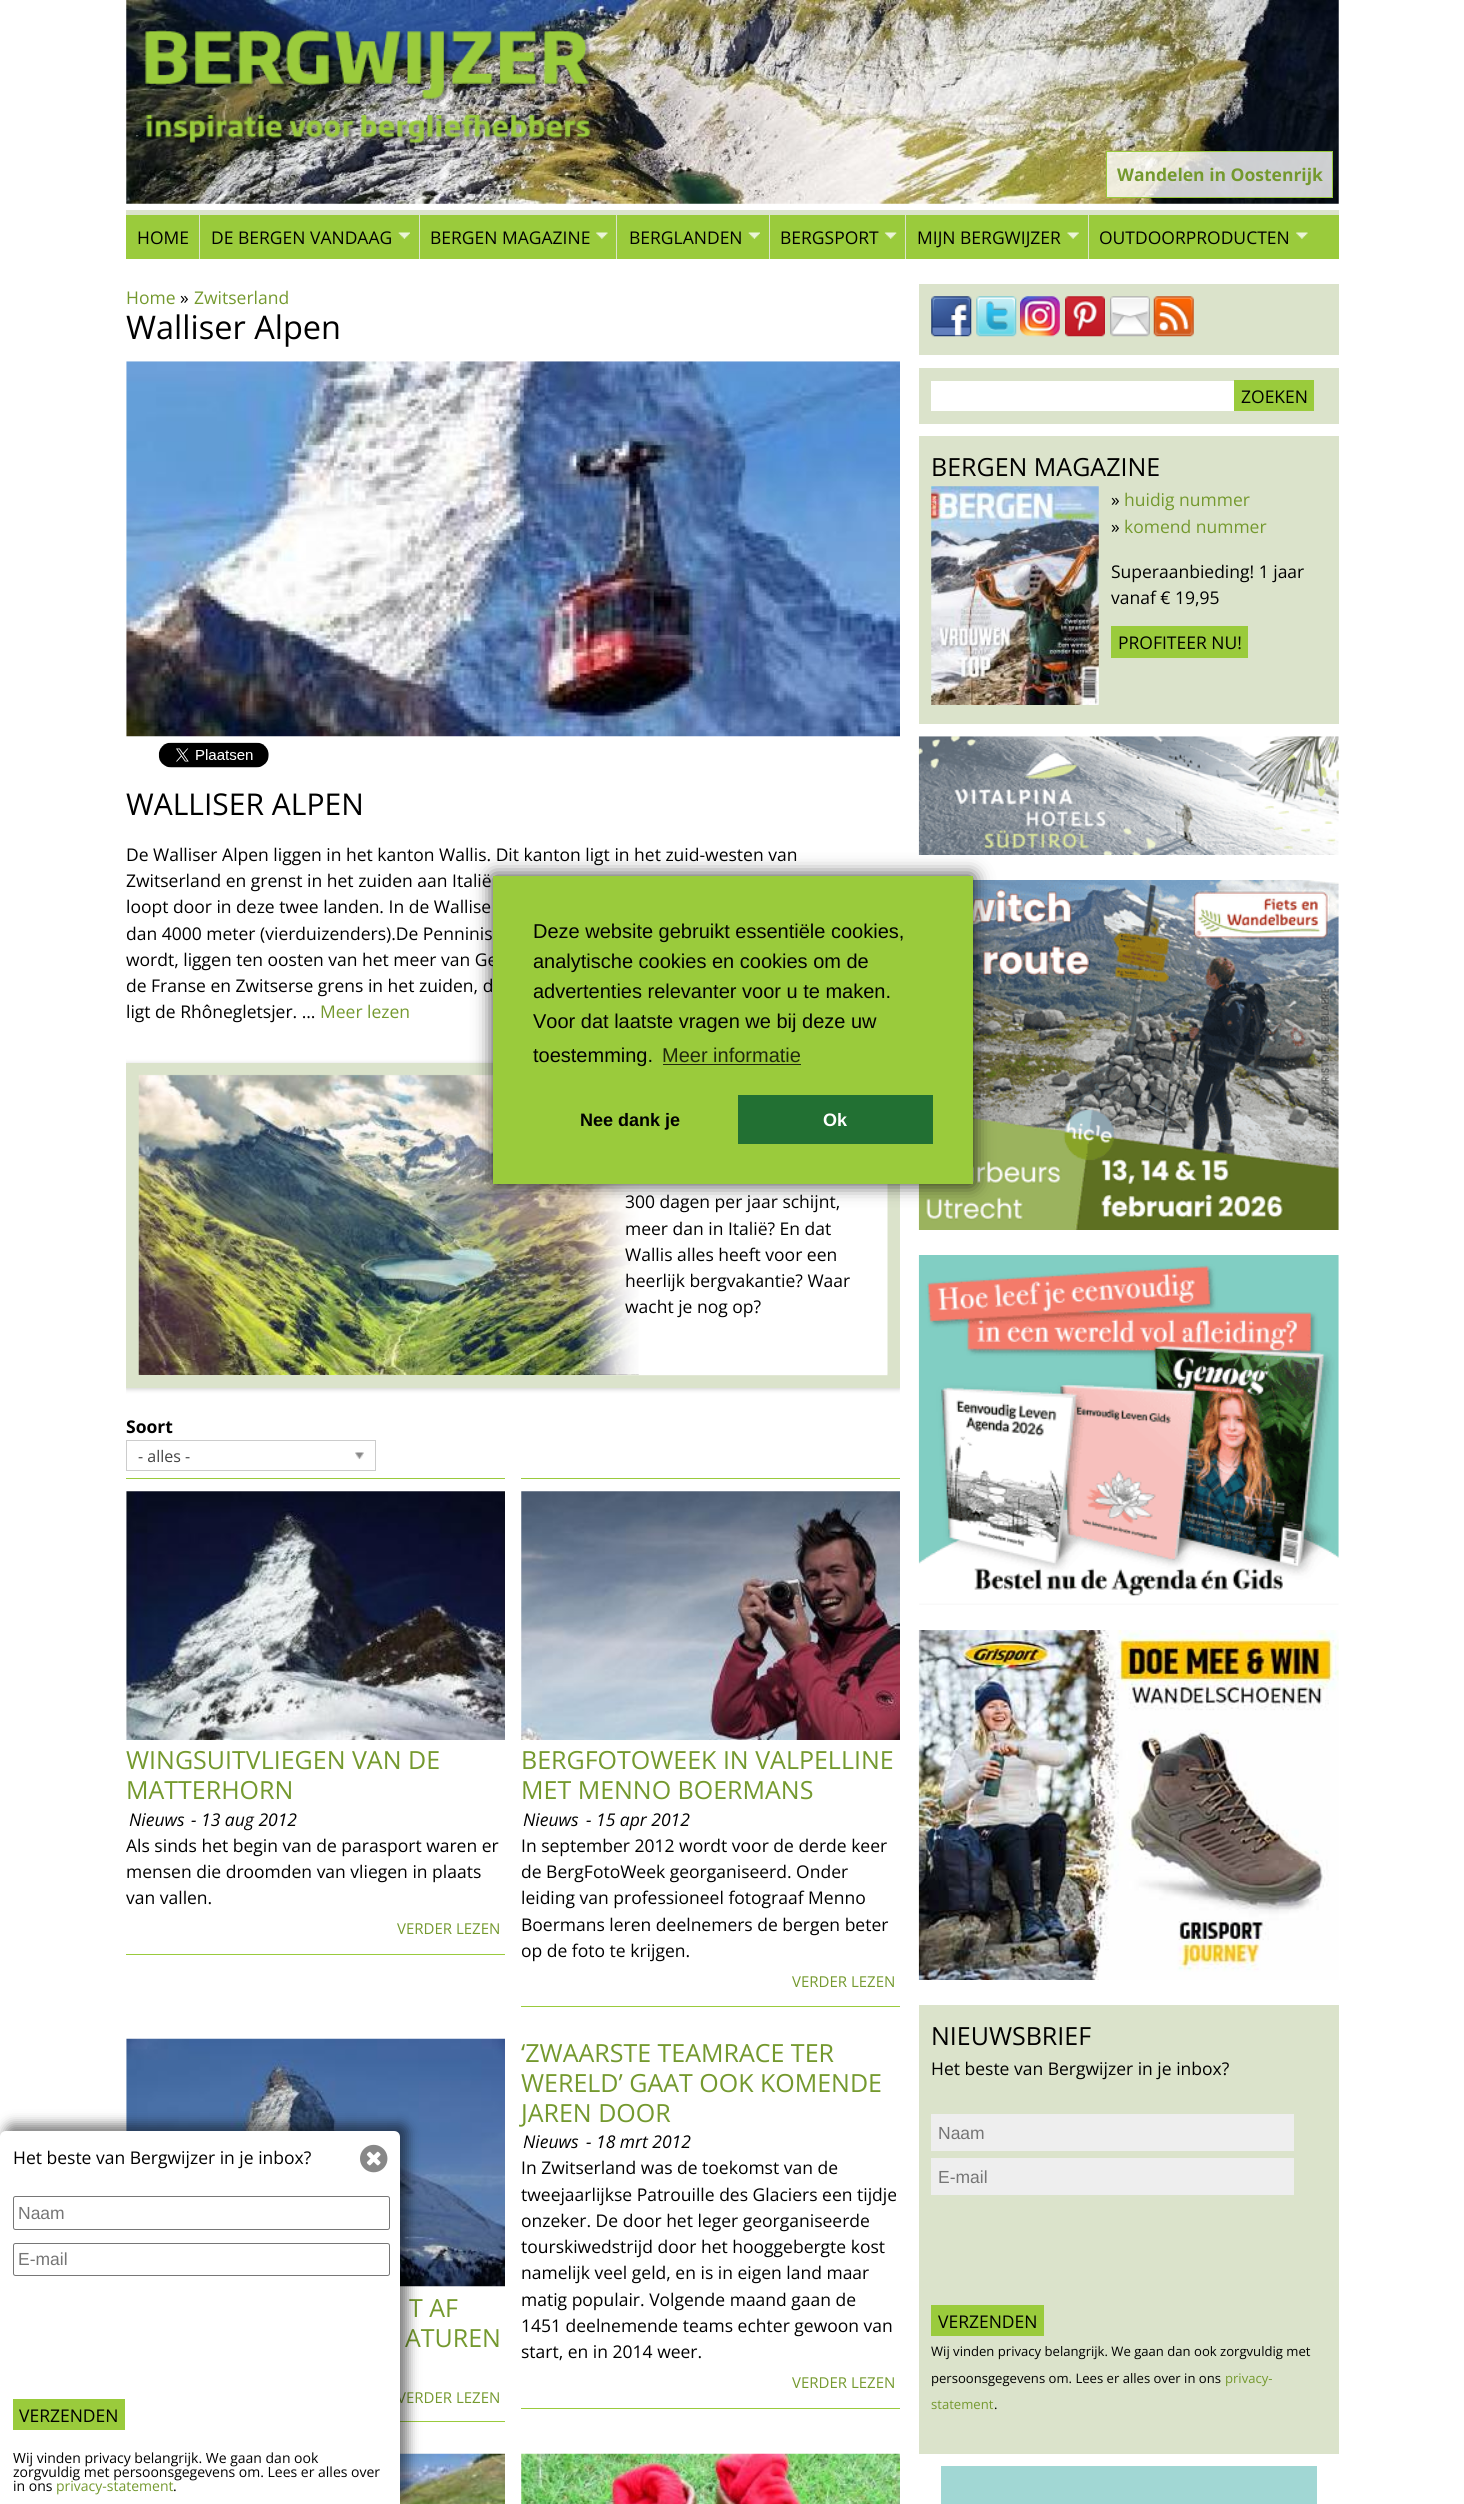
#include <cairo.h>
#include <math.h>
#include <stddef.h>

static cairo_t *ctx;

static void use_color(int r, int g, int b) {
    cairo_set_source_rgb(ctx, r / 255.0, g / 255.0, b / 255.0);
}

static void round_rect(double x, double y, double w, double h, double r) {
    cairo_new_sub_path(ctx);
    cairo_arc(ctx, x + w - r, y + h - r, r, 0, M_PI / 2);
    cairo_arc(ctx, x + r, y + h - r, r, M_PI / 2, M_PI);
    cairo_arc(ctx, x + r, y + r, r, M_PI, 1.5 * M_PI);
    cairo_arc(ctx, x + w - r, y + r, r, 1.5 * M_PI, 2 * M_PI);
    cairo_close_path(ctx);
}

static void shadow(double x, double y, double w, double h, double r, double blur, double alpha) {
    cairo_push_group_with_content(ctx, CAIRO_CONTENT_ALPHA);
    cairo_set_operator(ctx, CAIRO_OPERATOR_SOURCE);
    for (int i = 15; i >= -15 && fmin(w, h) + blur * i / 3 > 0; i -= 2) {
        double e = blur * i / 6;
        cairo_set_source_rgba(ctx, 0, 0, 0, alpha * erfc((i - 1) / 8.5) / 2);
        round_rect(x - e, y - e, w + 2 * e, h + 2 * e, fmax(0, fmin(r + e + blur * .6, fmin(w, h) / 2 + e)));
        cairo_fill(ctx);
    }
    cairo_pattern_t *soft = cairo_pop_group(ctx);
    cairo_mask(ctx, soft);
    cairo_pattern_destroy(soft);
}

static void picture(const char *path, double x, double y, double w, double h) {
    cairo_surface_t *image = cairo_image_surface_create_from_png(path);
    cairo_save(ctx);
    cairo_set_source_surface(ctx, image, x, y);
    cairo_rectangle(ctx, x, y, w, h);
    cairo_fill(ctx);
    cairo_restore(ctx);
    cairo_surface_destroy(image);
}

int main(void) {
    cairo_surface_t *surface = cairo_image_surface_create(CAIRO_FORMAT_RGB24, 1464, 2504);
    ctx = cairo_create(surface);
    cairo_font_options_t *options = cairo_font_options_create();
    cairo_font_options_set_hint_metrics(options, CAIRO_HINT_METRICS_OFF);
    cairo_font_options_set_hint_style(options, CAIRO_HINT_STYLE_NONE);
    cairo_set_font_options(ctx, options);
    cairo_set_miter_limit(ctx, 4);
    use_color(255, 255, 255);
    cairo_paint(ctx);
    picture("img2.png", 126, 0, 1213, 204);
    picture("img1.png", 144, 29, 451, 119);
    cairo_set_source_rgba(ctx, 1, 1, 1, 0.8);
    cairo_rectangle(ctx, 1106.5, 151.5, 226, 46);
    cairo_fill_preserve(ctx);
    use_color(154, 203, 60);
    cairo_set_line_width(ctx, 1);
    cairo_stroke(ctx);
    cairo_select_font_face(ctx, "Open Sans", CAIRO_FONT_SLANT_NORMAL, CAIRO_FONT_WEIGHT_BOLD);
    cairo_set_font_size(ctx, 17.5);
    use_color(116, 153, 46);
    cairo_move_to(ctx, 1117, 181);
    cairo_show_text(ctx, "Wandelen in Oostenrijk");
    use_color(154, 203, 60);
    cairo_rectangle(ctx, 126, 215, 1213, 44);
    cairo_fill(ctx);
    use_color(219, 227, 203);
    cairo_rectangle(ctx, 126, 210, 1213, 5);
    cairo_fill(ctx);
    cairo_rectangle(ctx, 199, 215, 1, 44);
    cairo_fill(ctx);
    cairo_select_font_face(ctx, "Open Sans", CAIRO_FONT_SLANT_NORMAL, CAIRO_FONT_WEIGHT_NORMAL);
    use_color(0, 0, 0);
    cairo_move_to(ctx, 137, 244);
    cairo_show_text(ctx, "HOME");
    use_color(219, 227, 203);
    cairo_rectangle(ctx, 419, 215, 1, 44);
    cairo_fill(ctx);
    use_color(0, 0, 0);
    cairo_move_to(ctx, 211, 244);
    cairo_show_text(ctx, "DE BERGEN VANDAAG");
    picture("img3.png", 398, 232, 12, 7);
    use_color(219, 227, 203);
    cairo_rectangle(ctx, 616, 215, 1, 44);
    cairo_fill(ctx);
    use_color(0, 0, 0);
    cairo_move_to(ctx, 430, 244);
    cairo_show_text(ctx, "BERGEN MAGAZINE");
    picture("img4.png", 596, 232, 12, 7);
    use_color(219, 227, 203);
    cairo_rectangle(ctx, 769, 215, 1, 44);
    cairo_fill(ctx);
    use_color(0, 0, 0);
    cairo_move_to(ctx, 629, 244);
    cairo_show_text(ctx, "BERGLANDEN");
    picture("img5.png", 748, 232, 12, 7);
    use_color(219, 227, 203);
    cairo_rectangle(ctx, 905, 215, 1, 44);
    cairo_fill(ctx);
    use_color(0, 0, 0);
    cairo_move_to(ctx, 780, 244);
    cairo_show_text(ctx, "BERGSPORT");
    picture("img6.png", 884, 232, 13, 7);
    use_color(219, 227, 203);
    cairo_rectangle(ctx, 1088, 215, 1, 44);
    cairo_fill(ctx);
    use_color(0, 0, 0);
    cairo_move_to(ctx, 917, 244);
    cairo_show_text(ctx, "MIJN BERGWIJZER");
    picture("img7.png", 1067, 232, 12, 7);
    cairo_move_to(ctx, 1099, 244);
    cairo_show_text(ctx, "OUTDOORPRODUCTEN");
    picture("img8.png", 1296, 232, 12, 7);
    use_color(116, 153, 46);
    cairo_move_to(ctx, 126, 304);
    cairo_show_text(ctx, "Home");
    use_color(0, 0, 0);
    cairo_move_to(ctx, 180, 304);
    cairo_show_text(ctx, "»");
    use_color(116, 153, 46);
    cairo_move_to(ctx, 194, 304);
    cairo_show_text(ctx, "Zwitserland");
    cairo_set_font_size(ctx, 32.5);
    use_color(0, 0, 0);
    cairo_move_to(ctx, 126, 339);
    cairo_show_text(ctx, "Walliser Alpen");
    picture("img9.png", 126, 361, 774, 376);
    picture("img10.png", 158, 742, 111, 26);
    cairo_set_font_size(ctx, 30);
    cairo_move_to(ctx, 126, 815);
    cairo_show_text(ctx, "WALLISER ALPEN");
    cairo_set_font_size(ctx, 17.5);
    cairo_move_to(ctx, 126, 861);
    cairo_show_text(ctx, "De Walliser Alpen liggen in het kanton Wallis. Dit kanton ligt in het zuid-westen van");
    cairo_move_to(ctx, 126, 887);
    cairo_show_text(ctx, "Zwitserland en grenst in het zuiden aan Italië");
    cairo_move_to(ctx, 126, 913);
    cairo_show_text(ctx, "loopt door in deze twee landen. In de Wallise");
    cairo_move_to(ctx, 126, 940);
    cairo_show_text(ctx, "dan 4000 meter (vierduizenders).De Penninis");
    cairo_move_to(ctx, 126, 966);
    cairo_show_text(ctx, "wordt, liggen ten oosten van het meer van Ge");
    cairo_move_to(ctx, 126, 992);
    cairo_show_text(ctx, "de Franse en Zwitserse grens in het zuiden, d");
    cairo_move_to(ctx, 126, 1018);
    cairo_show_text(ctx, "ligt de Rhônegletsjer. …");
    use_color(116, 153, 46);
    cairo_move_to(ctx, 320, 1018);
    cairo_show_text(ctx, "Meer lezen");
    cairo_save(ctx);
    cairo_rectangle(ctx, 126, 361, 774, 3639);
    cairo_clip(ctx);
    cairo_set_fill_rule(ctx, CAIRO_FILL_RULE_EVEN_ODD);
    cairo_new_path(ctx);
    cairo_move_to(ctx, 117, 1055);
    cairo_line_to(ctx, 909, 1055);
    cairo_line_to(ctx, 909, 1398);
    cairo_line_to(ctx, 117, 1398);
    cairo_close_path(ctx);
    cairo_move_to(ctx, 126, 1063);
    cairo_line_to(ctx, 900, 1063);
    cairo_line_to(ctx, 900, 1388);
    cairo_line_to(ctx, 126, 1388);
    cairo_close_path(ctx);
    cairo_clip(ctx);
    use_color(0, 0, 0);
    shadow(126, 1064, 774, 325, 0, 2.5, 0.2);
    cairo_restore(ctx);
    cairo_rectangle(ctx, 132.5, 1069.5, 761, 312);
    use_color(219, 227, 203);
    cairo_set_line_width(ctx, 13);
    cairo_stroke(ctx);
    picture("img11.png", 138, 1074, 501, 301);
    picture("img12.png", 578, 1184, 310, 192);
    use_color(0, 0, 0);
    cairo_move_to(ctx, 625, 1208);
    cairo_show_text(ctx, "300 dagen per jaar schijnt,");
    cairo_move_to(ctx, 625, 1235);
    cairo_show_text(ctx, "meer dan in Italië? En dat");
    cairo_move_to(ctx, 625, 1261);
    cairo_show_text(ctx, "Wallis alles heeft voor een");
    cairo_move_to(ctx, 625, 1287);
    cairo_show_text(ctx, "heerlijk bergvakantie? Waar");
    cairo_move_to(ctx, 625, 1313);
    cairo_show_text(ctx, "wacht je nog op?");
    cairo_select_font_face(ctx, "Open Sans", CAIRO_FONT_SLANT_NORMAL, CAIRO_FONT_WEIGHT_BOLD);
    cairo_move_to(ctx, 126, 1433);
    cairo_show_text(ctx, "Soort");
    cairo_rectangle(ctx, 126.5, 1440.5, 249, 30);
    use_color(204, 204, 204);
    cairo_set_line_width(ctx, 1);
    cairo_stroke(ctx);
    cairo_select_font_face(ctx, "Open Sans", CAIRO_FONT_SLANT_NORMAL, CAIRO_FONT_WEIGHT_NORMAL);
    cairo_set_font_size(ctx, 16);
    use_color(68, 68, 68);
    cairo_move_to(ctx, 138, 1462);
    cairo_show_text(ctx, "- alles -");
    picture("img13.png", 355, 1452, 9, 8);
    use_color(154, 203, 60);
    cairo_rectangle(ctx, 126, 1478, 379, 1);
    cairo_fill(ctx);
    cairo_rectangle(ctx, 126, 1954, 379, 1);
    cairo_fill(ctx);
    picture("img14.png", 126, 1491, 379, 249);
    cairo_set_font_size(ctx, 25);
    use_color(116, 153, 46);
    cairo_move_to(ctx, 126, 1769);
    cairo_show_text(ctx, "WINGSUITVLIEGEN VAN DE");
    cairo_move_to(ctx, 126, 1799);
    cairo_show_text(ctx, "MATTERHORN");
    cairo_select_font_face(ctx, "Open Sans", CAIRO_FONT_SLANT_ITALIC, CAIRO_FONT_WEIGHT_NORMAL);
    cairo_set_font_size(ctx, 17.5);
    use_color(0, 0, 0);
    cairo_move_to(ctx, 129, 1826);
    cairo_show_text(ctx, "Nieuws");
    cairo_move_to(ctx, 191, 1826);
    cairo_show_text(ctx, "- 13 aug 2012");
    cairo_select_font_face(ctx, "Open Sans", CAIRO_FONT_SLANT_NORMAL, CAIRO_FONT_WEIGHT_NORMAL);
    cairo_move_to(ctx, 126, 1852);
    cairo_show_text(ctx, "Als sinds het begin van de parasport waren er");
    cairo_move_to(ctx, 126, 1878);
    cairo_show_text(ctx, "mensen die droomden van vliegen in plaats");
    cairo_move_to(ctx, 126, 1904);
    cairo_show_text(ctx, "van vallen.");
    cairo_set_font_size(ctx, 15);
    use_color(116, 153, 46);
    cairo_move_to(ctx, 397, 1934);
    cairo_show_text(ctx, "VERDER LEZEN");
    use_color(154, 203, 60);
    cairo_rectangle(ctx, 521, 1478, 379, 1);
    cairo_fill(ctx);
    cairo_rectangle(ctx, 521, 2006, 379, 1);
    cairo_fill(ctx);
    picture("img15.png", 521, 1491, 379, 249);
    cairo_set_font_size(ctx, 25);
    use_color(116, 153, 46);
    cairo_move_to(ctx, 521, 1769);
    cairo_show_text(ctx, "BERGFOTOWEEK IN VALPELLINE");
    cairo_move_to(ctx, 521, 1799);
    cairo_show_text(ctx, "MET MENNO BOERMANS");
    cairo_select_font_face(ctx, "Open Sans", CAIRO_FONT_SLANT_ITALIC, CAIRO_FONT_WEIGHT_NORMAL);
    cairo_set_font_size(ctx, 17.5);
    use_color(0, 0, 0);
    cairo_move_to(ctx, 523, 1826);
    cairo_show_text(ctx, "Nieuws");
    cairo_move_to(ctx, 586, 1826);
    cairo_show_text(ctx, "- 15 apr 2012");
    cairo_select_font_face(ctx, "Open Sans", CAIRO_FONT_SLANT_NORMAL, CAIRO_FONT_WEIGHT_NORMAL);
    cairo_move_to(ctx, 521, 1852);
    cairo_show_text(ctx, "In september 2012 wordt voor de derde keer");
    cairo_move_to(ctx, 521, 1878);
    cairo_show_text(ctx, "de BergFotoWeek georganiseerd. Onder");
    cairo_move_to(ctx, 521, 1904);
    cairo_show_text(ctx, "leiding van professioneel fotograaf Menno");
    cairo_move_to(ctx, 521, 1931);
    cairo_show_text(ctx, "Boermans leren deelnemers de bergen beter");
    cairo_move_to(ctx, 521, 1957);
    cairo_show_text(ctx, "op de foto te krijgen.");
    cairo_set_font_size(ctx, 15);
    use_color(116, 153, 46);
    cairo_move_to(ctx, 792, 1987);
    cairo_show_text(ctx, "VERDER LEZEN");
    use_color(154, 203, 60);
    cairo_rectangle(ctx, 400, 2421, 105, 1);
    cairo_fill(ctx);
    picture("img16.png", 126, 2038, 379, 249);
    cairo_set_font_size(ctx, 25);
    use_color(116, 153, 46);
    cairo_move_to(ctx, 409, 2317);
    cairo_show_text(ctx, "T AF");
    cairo_move_to(ctx, 405, 2347);
    cairo_show_text(ctx, "ATUREN");
    cairo_set_font_size(ctx, 15);
    cairo_move_to(ctx, 397, 2403);
    cairo_show_text(ctx, "VERDER LEZEN");
    use_color(154, 203, 60);
    cairo_rectangle(ctx, 521, 2408, 379, 1);
    cairo_fill(ctx);
    cairo_set_font_size(ctx, 25);
    use_color(116, 153, 46);
    cairo_move_to(ctx, 521, 2062);
    cairo_show_text(ctx, "‘ZWAARSTE TEAMRACE TER");
    cairo_move_to(ctx, 521, 2092);
    cairo_show_text(ctx, "WERELD’ GAAT OOK KOMENDE");
    cairo_move_to(ctx, 521, 2122);
    cairo_show_text(ctx, "JAREN DOOR");
    cairo_select_font_face(ctx, "Open Sans", CAIRO_FONT_SLANT_ITALIC, CAIRO_FONT_WEIGHT_NORMAL);
    cairo_set_font_size(ctx, 17.5);
    use_color(0, 0, 0);
    cairo_move_to(ctx, 523, 2148);
    cairo_show_text(ctx, "Nieuws");
    cairo_move_to(ctx, 586, 2148);
    cairo_show_text(ctx, "- 18 mrt 2012");
    cairo_select_font_face(ctx, "Open Sans", CAIRO_FONT_SLANT_NORMAL, CAIRO_FONT_WEIGHT_NORMAL);
    cairo_move_to(ctx, 521, 2174);
    cairo_show_text(ctx, "In Zwitserland was de toekomst van de");
    cairo_move_to(ctx, 521, 2201);
    cairo_show_text(ctx, "tweejaarlijkse Patrouille des Glaciers een tijdje");
    cairo_move_to(ctx, 521, 2227);
    cairo_show_text(ctx, "onzeker. De door het leger georganiseerde");
    cairo_move_to(ctx, 521, 2253);
    cairo_show_text(ctx, "tourskiwedstrijd door het hooggebergte kost");
    cairo_move_to(ctx, 521, 2279);
    cairo_show_text(ctx, "namelijk veel geld, en is in eigen land maar");
    cairo_move_to(ctx, 521, 2306);
    cairo_show_text(ctx, "matig populair. Volgende maand gaan de");
    cairo_move_to(ctx, 521, 2332);
    cairo_show_text(ctx, "1451 deelnemende teams echter gewoon van");
    cairo_move_to(ctx, 521, 2358);
    cairo_show_text(ctx, "start, en in 2014 weer.");
    cairo_set_font_size(ctx, 15);
    use_color(116, 153, 46);
    cairo_move_to(ctx, 792, 2388);
    cairo_show_text(ctx, "VERDER LEZEN");
    picture("img17.png", 400, 2453, 105, 51);
    picture("img18.png", 521, 2453, 379, 51);
    use_color(219, 227, 203);
    cairo_rectangle(ctx, 919, 284, 420, 71);
    cairo_fill(ctx);
    picture("img19.png", 931, 296, 41, 41);
    picture("img20.png", 976, 296, 41, 41);
    picture("img21.png", 1020, 296, 40, 41);
    picture("img22.png", 1065, 296, 40, 41);
    picture("img23.png", 1110, 296, 40, 41);
    picture("img24.png", 1153, 296, 41, 41);
    cairo_rectangle(ctx, 919, 368, 420, 56);
    cairo_fill(ctx);
    use_color(255, 255, 255);
    cairo_rectangle(ctx, 931, 381, 303, 30);
    cairo_fill(ctx);
    use_color(154, 203, 60);
    cairo_rectangle(ctx, 1234, 380, 80, 31);
    cairo_fill(ctx);
    cairo_set_font_size(ctx, 17.5);
    use_color(0, 0, 0);
    cairo_move_to(ctx, 1241, 403);
    cairo_show_text(ctx, "ZOEKEN");
    use_color(219, 227, 203);
    cairo_rectangle(ctx, 919, 436, 420, 288);
    cairo_fill(ctx);
    cairo_set_font_size(ctx, 25);
    use_color(0, 0, 0);
    cairo_move_to(ctx, 931, 476);
    cairo_show_text(ctx, "BERGEN MAGAZINE");
    picture("img25.png", 931, 486, 168, 219);
    cairo_set_font_size(ctx, 17.5);
    cairo_move_to(ctx, 1111, 506);
    cairo_show_text(ctx, "»");
    use_color(116, 153, 46);
    cairo_move_to(ctx, 1124, 506);
    cairo_show_text(ctx, "huidig nummer");
    use_color(0, 0, 0);
    cairo_move_to(ctx, 1111, 533);
    cairo_show_text(ctx, "»");
    use_color(116, 153, 46);
    cairo_move_to(ctx, 1124, 533);
    cairo_show_text(ctx, "komend nummer");
    use_color(0, 0, 0);
    cairo_move_to(ctx, 1111, 578);
    cairo_show_text(ctx, "Superaanbieding! 1 jaar");
    cairo_move_to(ctx, 1111, 604);
    cairo_show_text(ctx, "vanaf € 19,95");
    use_color(154, 203, 60);
    cairo_rectangle(ctx, 1111, 626, 137, 32);
    cairo_fill(ctx);
    use_color(0, 0, 0);
    cairo_move_to(ctx, 1118, 649);
    cairo_show_text(ctx, "PROFITEER NU!");
    picture("img26.png", 918, 736, 421, 119);
    picture("img27.png", 918, 880, 421, 350);
    picture("img28.png", 918, 1255, 421, 350);
    picture("img29.png", 918, 1630, 421, 350);
    use_color(0, 0, 0);
    shadow(5, 2124, 403, 376, 8, 6, 0.5);
    use_color(255, 255, 255);
    cairo_new_path(ctx);
    cairo_move_to(ctx, 6, 2131);
    cairo_line_to(ctx, 394, 2131);
    cairo_curve_to(ctx, 397.5, 2131, 400, 2133.5, 400, 2137);
    cairo_line_to(ctx, 400, 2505);
    cairo_line_to(ctx, 0, 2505);
    cairo_line_to(ctx, 0, 2137);
    cairo_curve_to(ctx, 0, 2133.5, 2.5, 2131, 6, 2131);
    cairo_close_path(ctx);
    cairo_fill(ctx);
    use_color(0, 0, 0);
    cairo_move_to(ctx, 13, 2164);
    cairo_show_text(ctx, "Het beste van Bergwijzer in je inbox?");
    picture("img30.png", 360, 2144, 28, 29);
    round_rect(13.5, 2196.5, 376, 33, 2);
    use_color(118, 118, 118);
    cairo_stroke(ctx);
    cairo_select_font_face(ctx, "Liberation Sans", CAIRO_FONT_SLANT_NORMAL, CAIRO_FONT_WEIGHT_NORMAL);
    use_color(117, 117, 117);
    cairo_move_to(ctx, 18, 2219);
    cairo_show_text(ctx, "Naam");
    round_rect(13.5, 2243.5, 376, 32, 2);
    use_color(118, 118, 118);
    cairo_stroke(ctx);
    use_color(117, 117, 117);
    cairo_move_to(ctx, 18, 2265);
    cairo_show_text(ctx, "E-mail");
    use_color(154, 203, 60);
    cairo_rectangle(ctx, 13, 2399, 112, 31);
    cairo_fill(ctx);
    cairo_select_font_face(ctx, "Open Sans", CAIRO_FONT_SLANT_NORMAL, CAIRO_FONT_WEIGHT_NORMAL);
    use_color(0, 0, 0);
    cairo_move_to(ctx, 19, 2422);
    cairo_show_text(ctx, "VERZENDEN");
    cairo_set_font_size(ctx, 14);
    cairo_move_to(ctx, 13, 2463);
    cairo_show_text(ctx, "Wij vinden privacy belangrijk. We gaan dan ook");
    cairo_move_to(ctx, 13, 2477);
    cairo_show_text(ctx, "zorgvuldig met persoonsgegevens om. Lees er alles over");
    cairo_move_to(ctx, 13, 2491);
    cairo_show_text(ctx, "in ons");
    use_color(116, 153, 46);
    cairo_move_to(ctx, 56, 2491);
    cairo_show_text(ctx, "privacy-statement");
    use_color(0, 0, 0);
    cairo_move_to(ctx, 173, 2491);
    cairo_show_text(ctx, ".");
    use_color(219, 227, 203);
    cairo_rectangle(ctx, 919, 2005, 420, 449);
    cairo_fill(ctx);
    cairo_set_font_size(ctx, 25);
    use_color(0, 0, 0);
    cairo_move_to(ctx, 931, 2045);
    cairo_show_text(ctx, "NIEUWSBRIEF");
    cairo_set_font_size(ctx, 17.5);
    cairo_move_to(ctx, 931, 2075);
    cairo_show_text(ctx, "Het beste van Bergwijzer in je inbox?");
    use_color(238, 238, 238);
    cairo_rectangle(ctx, 931, 2114, 363, 37);
    cairo_fill(ctx);
    cairo_select_font_face(ctx, "Liberation Sans", CAIRO_FONT_SLANT_NORMAL, CAIRO_FONT_WEIGHT_NORMAL);
    use_color(117, 117, 117);
    cairo_move_to(ctx, 938, 2139);
    cairo_show_text(ctx, "Naam");
    use_color(238, 238, 238);
    cairo_rectangle(ctx, 931, 2158, 363, 37);
    cairo_fill(ctx);
    use_color(117, 117, 117);
    cairo_move_to(ctx, 938, 2183);
    cairo_show_text(ctx, "E-mail");
    use_color(154, 203, 60);
    cairo_rectangle(ctx, 931, 2305, 113, 31);
    cairo_fill(ctx);
    cairo_select_font_face(ctx, "Open Sans", CAIRO_FONT_SLANT_NORMAL, CAIRO_FONT_WEIGHT_NORMAL);
    use_color(0, 0, 0);
    cairo_move_to(ctx, 938, 2328);
    cairo_show_text(ctx, "VERZENDEN");
    cairo_set_font_size(ctx, 13.1);
    cairo_move_to(ctx, 931, 2356);
    cairo_show_text(ctx, "Wij vinden privacy belangrijk. We gaan dan ook zorgvuldig met");
    cairo_move_to(ctx, 931, 2383);
    cairo_show_text(ctx, "persoonsgegevens om. Lees er alles over in ons");
    use_color(116, 153, 46);
    cairo_move_to(ctx, 1225, 2383);
    cairo_show_text(ctx, "privacy-");
    cairo_move_to(ctx, 931, 2409);
    cairo_show_text(ctx, "statement");
    use_color(0, 0, 0);
    cairo_move_to(ctx, 994, 2409);
    cairo_show_text(ctx, ".");
    use_color(161, 215, 212);
    cairo_rectangle(ctx, 941, 2466, 376, 38);
    cairo_fill(ctx);
    use_color(0, 0, 0);
    shadow(493, 876, 480, 308, 0, 9.5, 0.8);
    use_color(154, 203, 60);
    cairo_rectangle(ctx, 493, 876, 480, 308);
    cairo_fill(ctx);
    cairo_select_font_face(ctx, "Liberation Sans", CAIRO_FONT_SLANT_NORMAL, CAIRO_FONT_WEIGHT_NORMAL);
    cairo_set_font_size(ctx, 20);
    use_color(0, 0, 0);
    cairo_move_to(ctx, 533, 938);
    cairo_show_text(ctx, "Deze website gebruikt essentiële cookies,");
    cairo_move_to(ctx, 533, 968);
    cairo_show_text(ctx, "analytische cookies en cookies om de");
    cairo_move_to(ctx, 533, 998);
    cairo_show_text(ctx, "advertenties relevanter voor u te maken.");
    cairo_move_to(ctx, 533, 1028);
    cairo_show_text(ctx, "Voor dat laatste vragen we bij deze uw");
    cairo_move_to(ctx, 533, 1062);
    cairo_show_text(ctx, "toestemming.");
    use_color(31, 41, 12);
    cairo_move_to(ctx, 662, 1062);
    cairo_show_text(ctx, "Meer informatie");
    cairo_rectangle(ctx, 663, 1064, 138, 1);
    cairo_fill(ctx);
    cairo_select_font_face(ctx, "Liberation Sans", CAIRO_FONT_SLANT_NORMAL, CAIRO_FONT_WEIGHT_BOLD);
    cairo_set_font_size(ctx, 18);
    use_color(0, 0, 0);
    cairo_move_to(ctx, 580, 1126);
    cairo_show_text(ctx, "Nee dank je");
    use_color(34, 112, 51);
    cairo_rectangle(ctx, 738, 1095, 195, 49);
    cairo_fill(ctx);
    use_color(255, 255, 255);
    cairo_move_to(ctx, 823, 1126);
    cairo_show_text(ctx, "Ok");
    cairo_surface_write_to_png(surface, "result.png");
    cairo_font_options_destroy(options);
    cairo_destroy(ctx);
    cairo_surface_destroy(surface);
    return 0;
}
